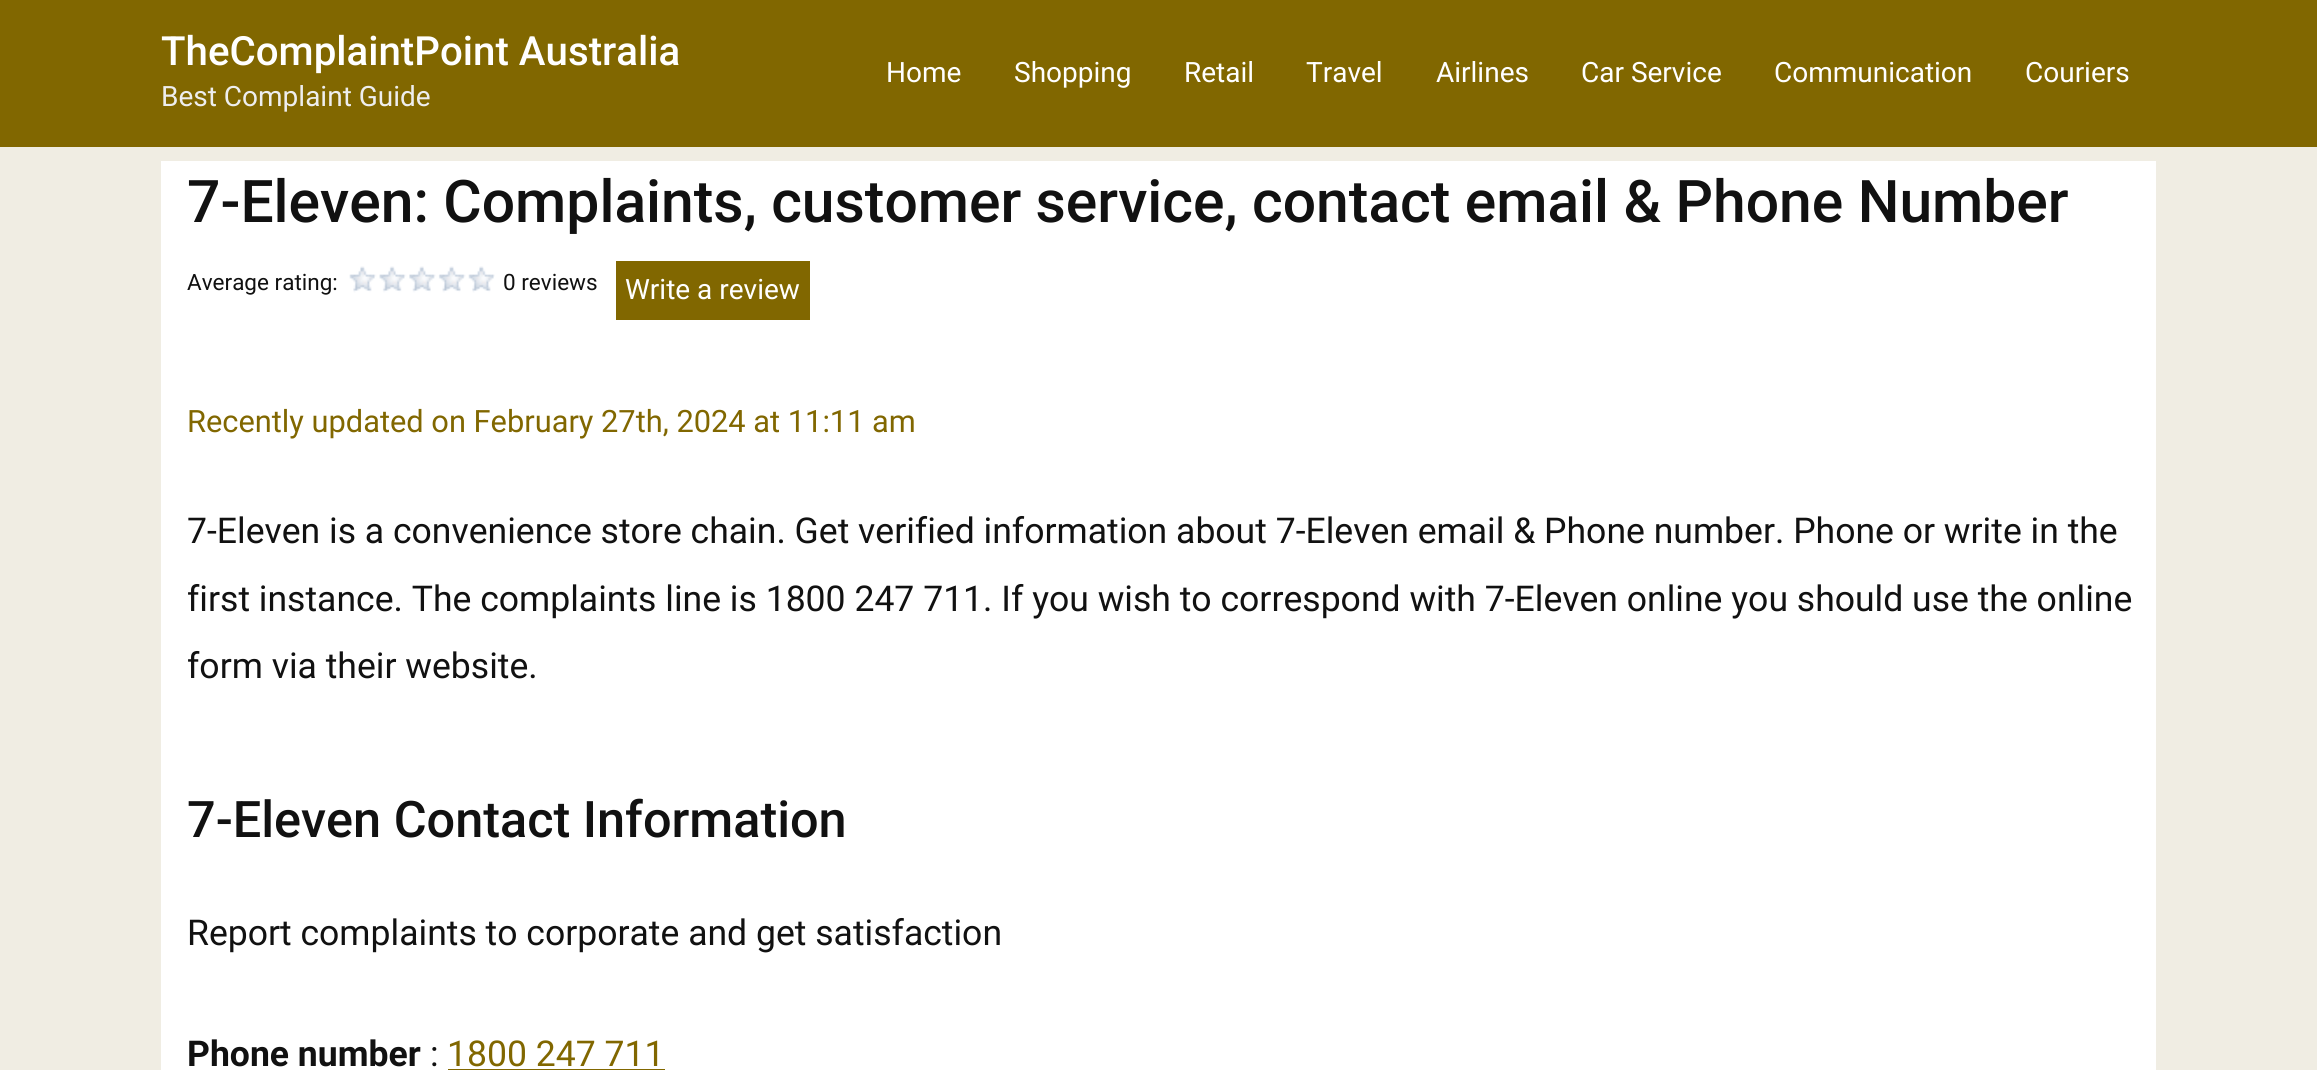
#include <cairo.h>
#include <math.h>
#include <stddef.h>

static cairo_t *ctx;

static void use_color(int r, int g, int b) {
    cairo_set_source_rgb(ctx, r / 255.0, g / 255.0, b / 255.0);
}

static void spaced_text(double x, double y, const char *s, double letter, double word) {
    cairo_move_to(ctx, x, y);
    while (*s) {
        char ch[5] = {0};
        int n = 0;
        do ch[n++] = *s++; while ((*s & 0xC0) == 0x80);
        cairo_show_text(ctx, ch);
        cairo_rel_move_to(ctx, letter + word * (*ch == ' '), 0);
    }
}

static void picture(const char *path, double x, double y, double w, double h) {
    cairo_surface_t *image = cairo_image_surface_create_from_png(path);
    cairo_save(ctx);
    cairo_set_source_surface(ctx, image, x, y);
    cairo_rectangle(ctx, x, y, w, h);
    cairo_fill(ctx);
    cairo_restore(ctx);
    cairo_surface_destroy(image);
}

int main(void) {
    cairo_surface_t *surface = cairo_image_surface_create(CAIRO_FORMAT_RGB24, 2317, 1070);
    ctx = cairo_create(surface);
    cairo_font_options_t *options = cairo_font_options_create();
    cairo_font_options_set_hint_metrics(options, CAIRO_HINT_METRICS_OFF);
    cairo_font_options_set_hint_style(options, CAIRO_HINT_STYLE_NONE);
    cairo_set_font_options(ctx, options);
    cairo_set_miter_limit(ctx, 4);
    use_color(240, 237, 227);
    cairo_paint(ctx);
    use_color(129, 103, 0);
    cairo_rectangle(ctx, 0, 0, 2317, 147);
    cairo_fill(ctx);
    cairo_select_font_face(ctx, "Roboto Medium", CAIRO_FONT_SLANT_NORMAL, CAIRO_FONT_WEIGHT_NORMAL);
    cairo_set_font_size(ctx, 40.25);
    use_color(255, 255, 255);
    cairo_move_to(ctx, 161, 65);
    cairo_show_text(ctx, "TheComplaintPoint Australia");
    cairo_select_font_face(ctx, "Roboto", CAIRO_FONT_SLANT_NORMAL, CAIRO_FONT_WEIGHT_NORMAL);
    cairo_set_font_size(ctx, 28);
    use_color(238, 238, 238);
    cairo_move_to(ctx, 161, 106);
    cairo_show_text(ctx, "Best Complaint Guide");
    use_color(255, 255, 255);
    cairo_move_to(ctx, 886, 82);
    cairo_show_text(ctx, "Home");
    cairo_move_to(ctx, 1014, 82);
    cairo_show_text(ctx, "Shopping");
    cairo_move_to(ctx, 1184, 82);
    cairo_show_text(ctx, "Retail");
    cairo_move_to(ctx, 1306, 82);
    cairo_show_text(ctx, "Travel");
    cairo_move_to(ctx, 1436, 82);
    cairo_show_text(ctx, "Airlines");
    cairo_move_to(ctx, 1581, 82);
    cairo_show_text(ctx, "Car Service");
    cairo_move_to(ctx, 1774, 82);
    cairo_show_text(ctx, "Communication");
    cairo_move_to(ctx, 2025, 82);
    cairo_show_text(ctx, "Couriers");
    cairo_rectangle(ctx, 161, 161, 1995, 909);
    cairo_fill(ctx);
    cairo_select_font_face(ctx, "Roboto Medium", CAIRO_FONT_SLANT_NORMAL, CAIRO_FONT_WEIGHT_NORMAL);
    cairo_set_font_size(ctx, 58.8);
    use_color(17, 17, 17);
    spaced_text(187, 222, "7-Eleven: Complaints, customer service, contact email & Phone Number", 0, -0.25);
    cairo_select_font_face(ctx, "Roboto", CAIRO_FONT_SLANT_NORMAL, CAIRO_FONT_WEIGHT_NORMAL);
    cairo_set_font_size(ctx, 22.5);
    cairo_move_to(ctx, 187, 290);
    cairo_show_text(ctx, "Average rating:");
    picture("img1.png", 349, 266, 146, 27);
    cairo_move_to(ctx, 503, 290);
    cairo_show_text(ctx, "0 reviews");
    use_color(129, 103, 0);
    cairo_rectangle(ctx, 616, 261, 194, 59);
    cairo_fill(ctx);
    cairo_set_font_size(ctx, 28);
    use_color(255, 255, 255);
    cairo_move_to(ctx, 625, 299);
    cairo_show_text(ctx, "Write a review");
    cairo_set_font_size(ctx, 30.8);
    use_color(129, 103, 0);
    cairo_move_to(ctx, 187, 432);
    cairo_show_text(ctx, "Recently updated on February 27th, 2024 at 11:11 am");
    cairo_set_font_size(ctx, 35.55);
    use_color(17, 17, 17);
    cairo_move_to(ctx, 187, 543);
    cairo_show_text(ctx, "7-Eleven is a convenience store chain. Get verified information about 7-Eleven email & Phone number. Phone or write in the");
    cairo_move_to(ctx, 187, 611);
    cairo_show_text(ctx, "first instance. The complaints line is 1800 247 711. If you wish to correspond with 7-Eleven online you should use the online");
    cairo_move_to(ctx, 187, 678);
    cairo_show_text(ctx, "form via their website.");
    cairo_select_font_face(ctx, "Roboto Medium", CAIRO_FONT_SLANT_NORMAL, CAIRO_FONT_WEIGHT_NORMAL);
    cairo_set_font_size(ctx, 50.4);
    cairo_move_to(ctx, 187, 837);
    cairo_show_text(ctx, "7-Eleven Contact Information");
    cairo_select_font_face(ctx, "Roboto", CAIRO_FONT_SLANT_NORMAL, CAIRO_FONT_WEIGHT_NORMAL);
    cairo_set_font_size(ctx, 35.55);
    cairo_move_to(ctx, 187, 945);
    cairo_show_text(ctx, "Report complaints to corporate and get satisfaction");
    cairo_select_font_face(ctx, "Roboto", CAIRO_FONT_SLANT_NORMAL, CAIRO_FONT_WEIGHT_BOLD);
    cairo_move_to(ctx, 187, 1066);
    cairo_show_text(ctx, "Phone number");
    cairo_select_font_face(ctx, "Roboto", CAIRO_FONT_SLANT_NORMAL, CAIRO_FONT_WEIGHT_NORMAL);
    cairo_move_to(ctx, 430, 1066);
    cairo_show_text(ctx, ":");
    use_color(129, 103, 0);
    cairo_move_to(ctx, 447, 1066);
    cairo_show_text(ctx, "1800 247 711");
    cairo_rectangle(ctx, 448, 1069, 217, 1);
    cairo_fill(ctx);
    cairo_surface_write_to_png(surface, "result.png");
    cairo_font_options_destroy(options);
    cairo_destroy(ctx);
    cairo_surface_destroy(surface);
    return 0;
}
